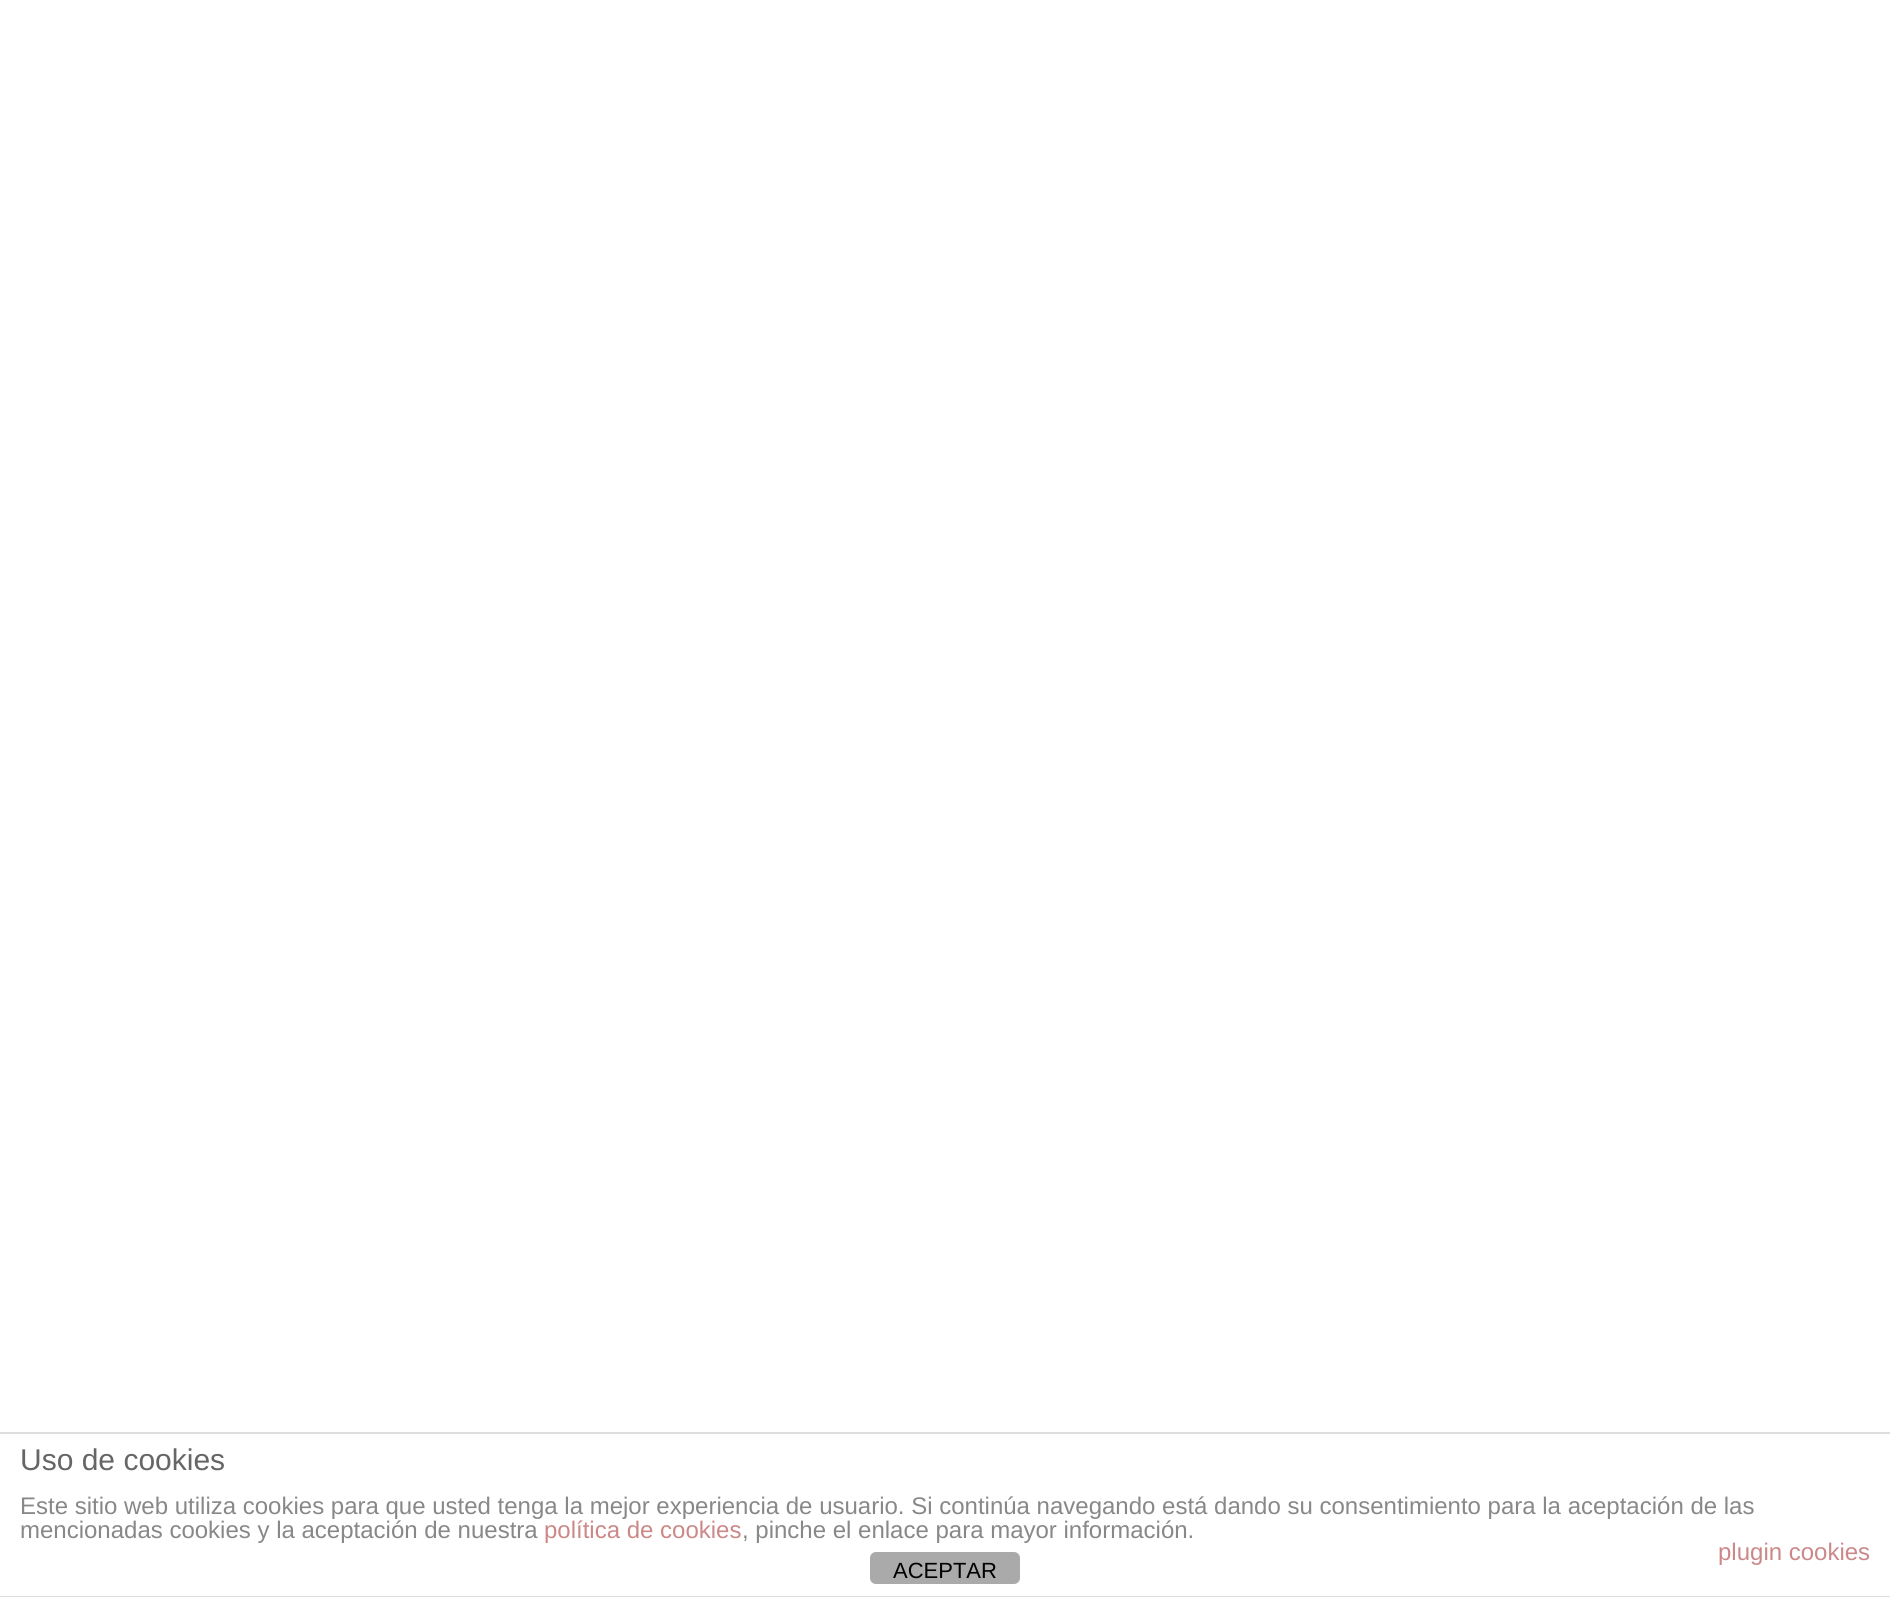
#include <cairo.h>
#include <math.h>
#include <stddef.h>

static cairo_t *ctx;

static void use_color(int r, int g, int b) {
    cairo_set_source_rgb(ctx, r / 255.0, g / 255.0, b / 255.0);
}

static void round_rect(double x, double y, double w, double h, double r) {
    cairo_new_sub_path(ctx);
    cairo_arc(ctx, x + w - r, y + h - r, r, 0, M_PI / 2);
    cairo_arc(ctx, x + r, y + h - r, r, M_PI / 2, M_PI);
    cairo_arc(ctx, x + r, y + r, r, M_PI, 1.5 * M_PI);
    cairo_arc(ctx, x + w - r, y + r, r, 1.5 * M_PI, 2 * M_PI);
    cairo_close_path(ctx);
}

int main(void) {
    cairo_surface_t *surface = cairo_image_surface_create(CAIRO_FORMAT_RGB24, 1890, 1597);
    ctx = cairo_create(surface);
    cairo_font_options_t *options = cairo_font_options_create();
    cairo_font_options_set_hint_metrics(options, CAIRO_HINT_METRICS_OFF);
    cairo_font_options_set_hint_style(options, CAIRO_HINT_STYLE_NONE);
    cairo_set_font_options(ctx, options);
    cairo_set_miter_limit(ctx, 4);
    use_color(255, 255, 255);
    cairo_paint(ctx);
    use_color(221, 221, 221);
    cairo_rectangle(ctx, 0, 1432, 1890, 2);
    cairo_fill(ctx);
    cairo_rectangle(ctx, 0, 1596, 1890, 1);
    cairo_fill(ctx);
    cairo_select_font_face(ctx, "Liberation Sans", CAIRO_FONT_SLANT_NORMAL, CAIRO_FONT_WEIGHT_NORMAL);
    cairo_set_font_size(ctx, 30);
    use_color(102, 102, 102);
    cairo_move_to(ctx, 20, 1470);
    cairo_show_text(ctx, "Uso de cookies");
    cairo_set_font_size(ctx, 24);
    use_color(136, 136, 136);
    cairo_move_to(ctx, 20, 1514);
    cairo_show_text(ctx, "Este sitio web utiliza cookies para que usted tenga la mejor experiencia de usuario. Si continúa navegando está dando su consentimiento para la aceptación de las");
    cairo_move_to(ctx, 20, 1538);
    cairo_show_text(ctx, "mencionadas cookies y la aceptación de nuestra");
    use_color(204, 136, 136);
    cairo_move_to(ctx, 544, 1538);
    cairo_show_text(ctx, "política de cookies");
    use_color(136, 136, 136);
    cairo_move_to(ctx, 742, 1538);
    cairo_show_text(ctx, ", pinche el enlace para mayor información.");
    use_color(204, 136, 136);
    cairo_move_to(ctx, 1718, 1560);
    cairo_show_text(ctx, "plugin cookies");
    use_color(170, 170, 170);
    round_rect(870, 1552, 150, 32, 6);
    cairo_fill(ctx);
    cairo_set_font_size(ctx, 22);
    use_color(0, 0, 0);
    cairo_move_to(ctx, 893, 1578);
    cairo_show_text(ctx, "ACEPTAR");
    cairo_surface_write_to_png(surface, "result.png");
    cairo_font_options_destroy(options);
    cairo_destroy(ctx);
    cairo_surface_destroy(surface);
    return 0;
}
